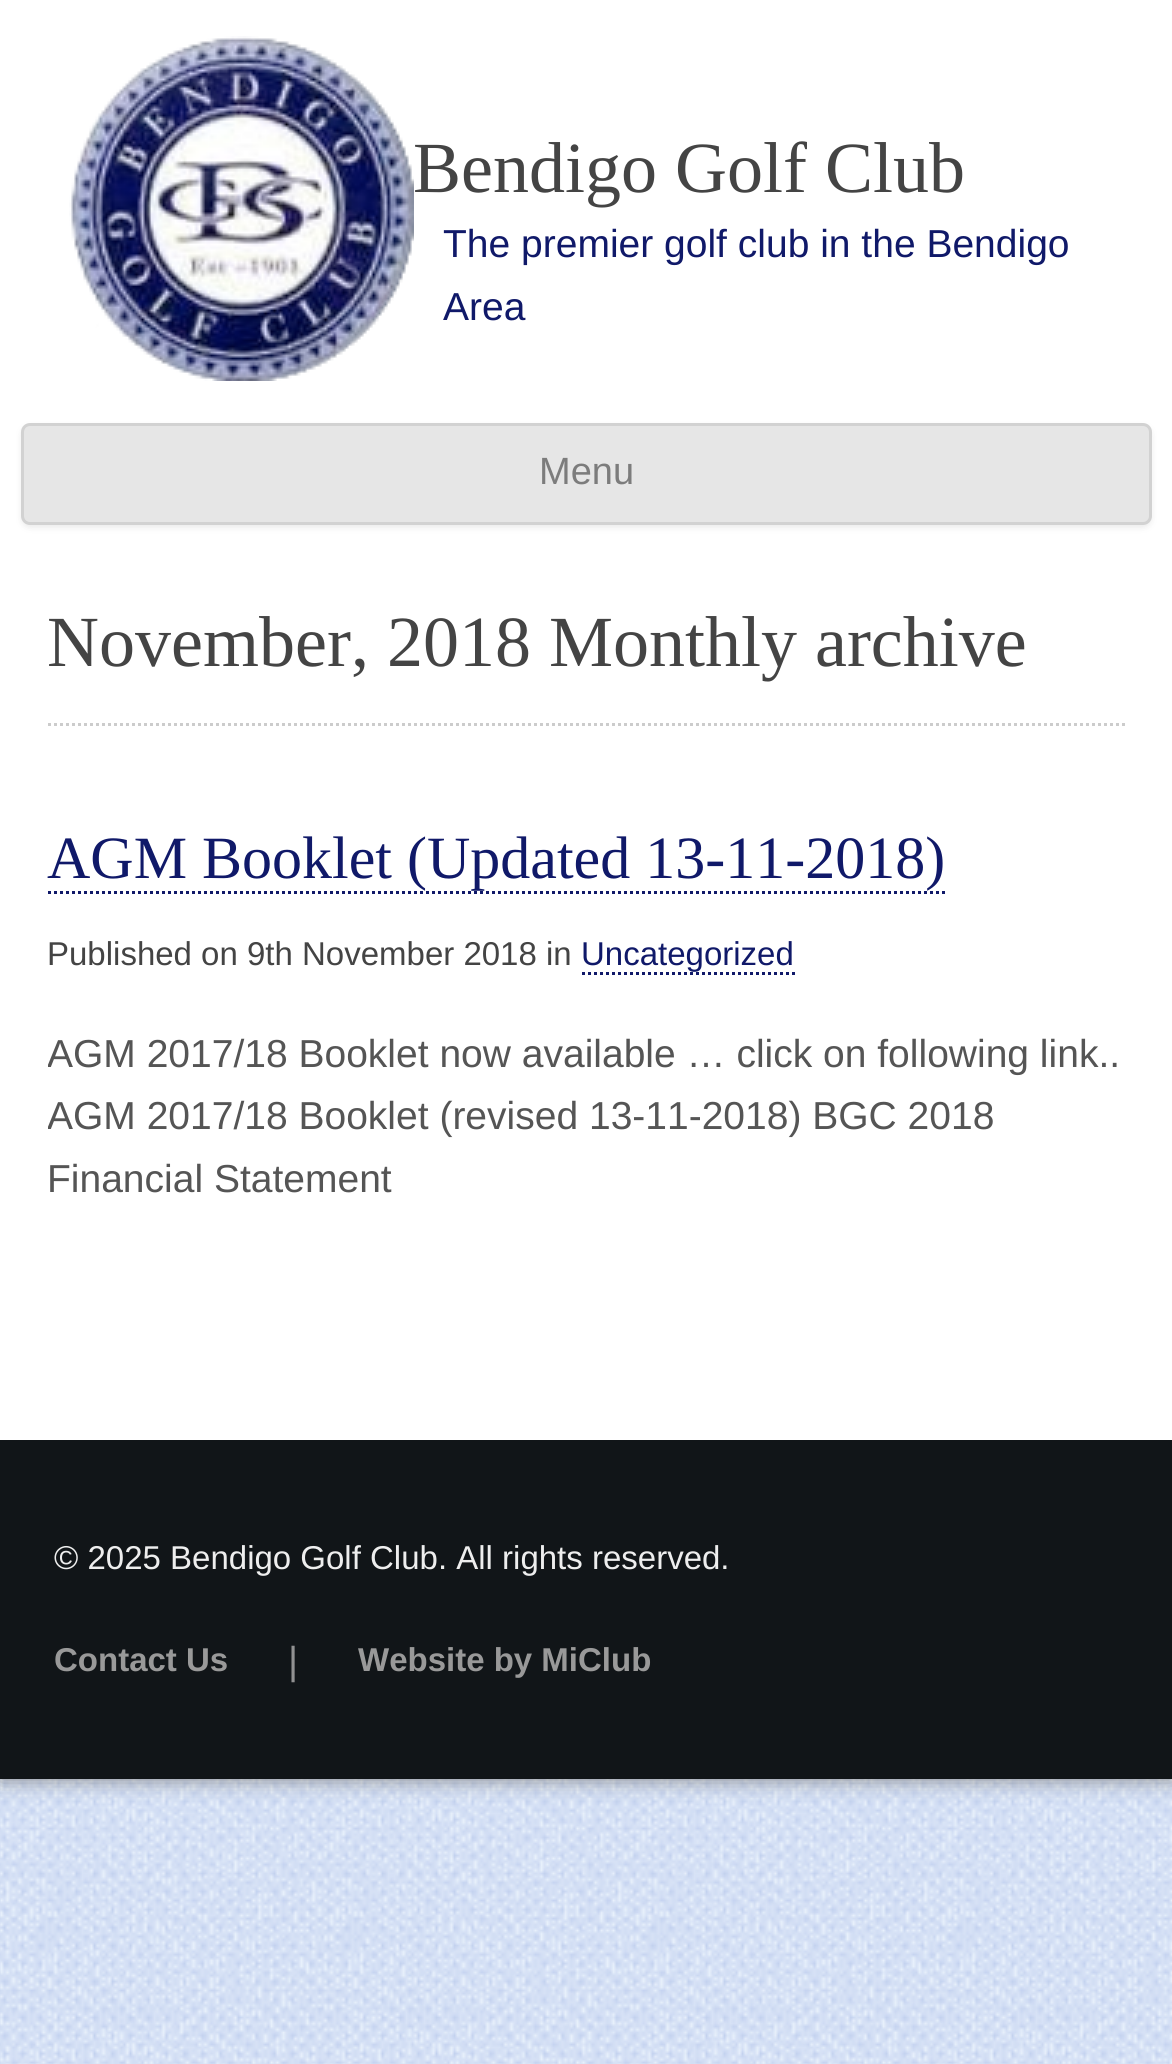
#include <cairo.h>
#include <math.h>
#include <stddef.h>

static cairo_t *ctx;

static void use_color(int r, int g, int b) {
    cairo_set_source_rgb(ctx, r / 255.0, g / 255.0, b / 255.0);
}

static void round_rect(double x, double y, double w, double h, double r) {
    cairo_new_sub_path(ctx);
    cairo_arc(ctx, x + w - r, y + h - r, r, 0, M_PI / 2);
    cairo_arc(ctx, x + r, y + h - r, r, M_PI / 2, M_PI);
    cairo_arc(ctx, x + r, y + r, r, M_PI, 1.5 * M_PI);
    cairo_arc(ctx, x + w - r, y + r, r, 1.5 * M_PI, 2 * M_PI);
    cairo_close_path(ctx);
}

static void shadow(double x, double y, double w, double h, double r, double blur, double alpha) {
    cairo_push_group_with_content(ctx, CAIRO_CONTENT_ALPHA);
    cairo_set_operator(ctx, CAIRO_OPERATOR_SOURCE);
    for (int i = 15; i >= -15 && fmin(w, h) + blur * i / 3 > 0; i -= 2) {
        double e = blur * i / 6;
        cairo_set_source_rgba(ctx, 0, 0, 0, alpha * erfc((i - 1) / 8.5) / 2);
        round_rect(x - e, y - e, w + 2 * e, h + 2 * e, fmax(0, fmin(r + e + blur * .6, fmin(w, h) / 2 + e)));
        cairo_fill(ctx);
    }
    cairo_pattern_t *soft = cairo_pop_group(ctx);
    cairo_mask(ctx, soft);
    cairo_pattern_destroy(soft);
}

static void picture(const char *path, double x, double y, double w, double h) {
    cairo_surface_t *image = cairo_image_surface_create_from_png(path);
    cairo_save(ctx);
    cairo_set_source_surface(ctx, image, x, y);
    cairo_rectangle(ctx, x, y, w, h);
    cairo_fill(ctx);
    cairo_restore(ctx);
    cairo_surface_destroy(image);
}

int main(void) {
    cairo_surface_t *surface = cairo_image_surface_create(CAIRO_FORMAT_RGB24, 1172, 2064);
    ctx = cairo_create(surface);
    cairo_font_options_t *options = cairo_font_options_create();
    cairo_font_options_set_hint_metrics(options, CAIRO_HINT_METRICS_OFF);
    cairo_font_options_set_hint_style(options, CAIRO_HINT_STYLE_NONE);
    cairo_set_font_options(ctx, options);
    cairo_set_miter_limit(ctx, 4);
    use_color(255, 255, 255);
    cairo_paint(ctx);
    picture("img1.png", 0, 1779, 1172, 285);
    use_color(136, 136, 136);
    shadow(0, 0, 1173, 1779, 0, 10.5, 1);
    use_color(255, 255, 255);
    cairo_rectangle(ctx, 0, 0, 1172, 1440);
    cairo_fill(ctx);
    picture("img2.png", 69, 36, 345, 345);
    cairo_select_font_face(ctx, "Liberation Serif", CAIRO_FONT_SLANT_NORMAL, CAIRO_FONT_WEIGHT_NORMAL);
    cairo_set_font_size(ctx, 72);
    use_color(68, 68, 68);
    cairo_move_to(ctx, 413, 192);
    cairo_show_text(ctx, "Bendigo Golf Club");
    cairo_select_font_face(ctx, "Liberation Sans", CAIRO_FONT_SLANT_NORMAL, CAIRO_FONT_WEIGHT_NORMAL);
    cairo_set_font_size(ctx, 39);
    use_color(16, 25, 105);
    cairo_move_to(ctx, 443, 257);
    cairo_show_text(ctx, "The premier golf club in the Bendigo");
    cairo_move_to(ctx, 443, 320);
    cairo_show_text(ctx, "Area");
    use_color(64, 64, 64);
    shadow(21, 426, 1131, 102, 9, 3, 0.1);
    use_color(230, 230, 230);
    round_rect(22.5, 424.5, 1128, 99, 7.5);
    cairo_fill_preserve(ctx);
    use_color(210, 210, 210);
    cairo_set_line_width(ctx, 3);
    cairo_stroke(ctx);
    cairo_set_font_size(ctx, 38);
    use_color(124, 124, 124);
    cairo_move_to(ctx, 539, 484);
    cairo_show_text(ctx, "Menu");
    cairo_new_path(ctx);
    cairo_move_to(ctx, 48, 724.5);
    cairo_line_to(ctx, 1125, 724.5);
    use_color(204, 204, 204);
    cairo_set_dash(ctx, (double[]){3, 3}, 2, 0);
    cairo_stroke(ctx);
    cairo_select_font_face(ctx, "Liberation Serif", CAIRO_FONT_SLANT_NORMAL, CAIRO_FONT_WEIGHT_NORMAL);
    cairo_set_font_size(ctx, 72);
    use_color(68, 68, 68);
    cairo_move_to(ctx, 47, 666);
    cairo_show_text(ctx, "November, 2018 Monthly archive");
    cairo_set_font_size(ctx, 60);
    use_color(16, 25, 105);
    cairo_move_to(ctx, 47, 878);
    cairo_show_text(ctx, "AGM Booklet (Updated 13-11-2018)");
    cairo_new_path(ctx);
    cairo_move_to(ctx, 48, 892.5);
    cairo_line_to(ctx, 945, 892.5);
    cairo_stroke(ctx);
    cairo_select_font_face(ctx, "Liberation Sans", CAIRO_FONT_SLANT_NORMAL, CAIRO_FONT_WEIGHT_NORMAL);
    cairo_set_font_size(ctx, 33);
    use_color(68, 68, 68);
    cairo_move_to(ctx, 47, 965);
    cairo_show_text(ctx, "Published on 9th November 2018 in");
    use_color(16, 25, 105);
    cairo_move_to(ctx, 581, 965);
    cairo_show_text(ctx, "Uncategorized");
    cairo_new_path(ctx);
    cairo_move_to(ctx, 582, 973.5);
    cairo_line_to(ctx, 795, 973.5);
    cairo_stroke(ctx);
    cairo_save(ctx);
    cairo_rectangle(ctx, 48, 786, 1077, 579);
    cairo_clip(ctx);
    cairo_set_font_size(ctx, 39);
    use_color(85, 85, 85);
    cairo_move_to(ctx, 47, 1067);
    cairo_show_text(ctx, "AGM 2017/18 Booklet now available … click on following link..");
    cairo_move_to(ctx, 47, 1129);
    cairo_show_text(ctx, "AGM 2017/18 Booklet (revised 13-11-2018) BGC 2018");
    cairo_restore(ctx);
    cairo_set_font_size(ctx, 39);
    use_color(85, 85, 85);
    cairo_move_to(ctx, 47, 1192);
    cairo_show_text(ctx, "Financial Statement");
    use_color(17, 21, 24);
    cairo_rectangle(ctx, 0, 1440, 1172, 339);
    cairo_fill(ctx);
    cairo_set_font_size(ctx, 33);
    use_color(238, 238, 238);
    cairo_move_to(ctx, 54, 1569);
    cairo_show_text(ctx, "© 2025 Bendigo Golf Club. All rights reserved.");
    cairo_select_font_face(ctx, "Liberation Sans", CAIRO_FONT_SLANT_NORMAL, CAIRO_FONT_WEIGHT_BOLD);
    use_color(153, 153, 153);
    cairo_move_to(ctx, 54, 1671);
    cairo_show_text(ctx, "Contact Us");
    cairo_select_font_face(ctx, "Liberation Sans", CAIRO_FONT_SLANT_NORMAL, CAIRO_FONT_WEIGHT_NORMAL);
    cairo_set_font_size(ctx, 39);
    use_color(145, 145, 145);
    cairo_move_to(ctx, 288, 1674);
    cairo_show_text(ctx, "|");
    cairo_select_font_face(ctx, "Liberation Sans", CAIRO_FONT_SLANT_NORMAL, CAIRO_FONT_WEIGHT_BOLD);
    cairo_set_font_size(ctx, 33);
    use_color(153, 153, 153);
    cairo_move_to(ctx, 358, 1671);
    cairo_show_text(ctx, "Website by MiClub");
    cairo_surface_write_to_png(surface, "result.png");
    cairo_font_options_destroy(options);
    cairo_destroy(ctx);
    cairo_surface_destroy(surface);
    return 0;
}
